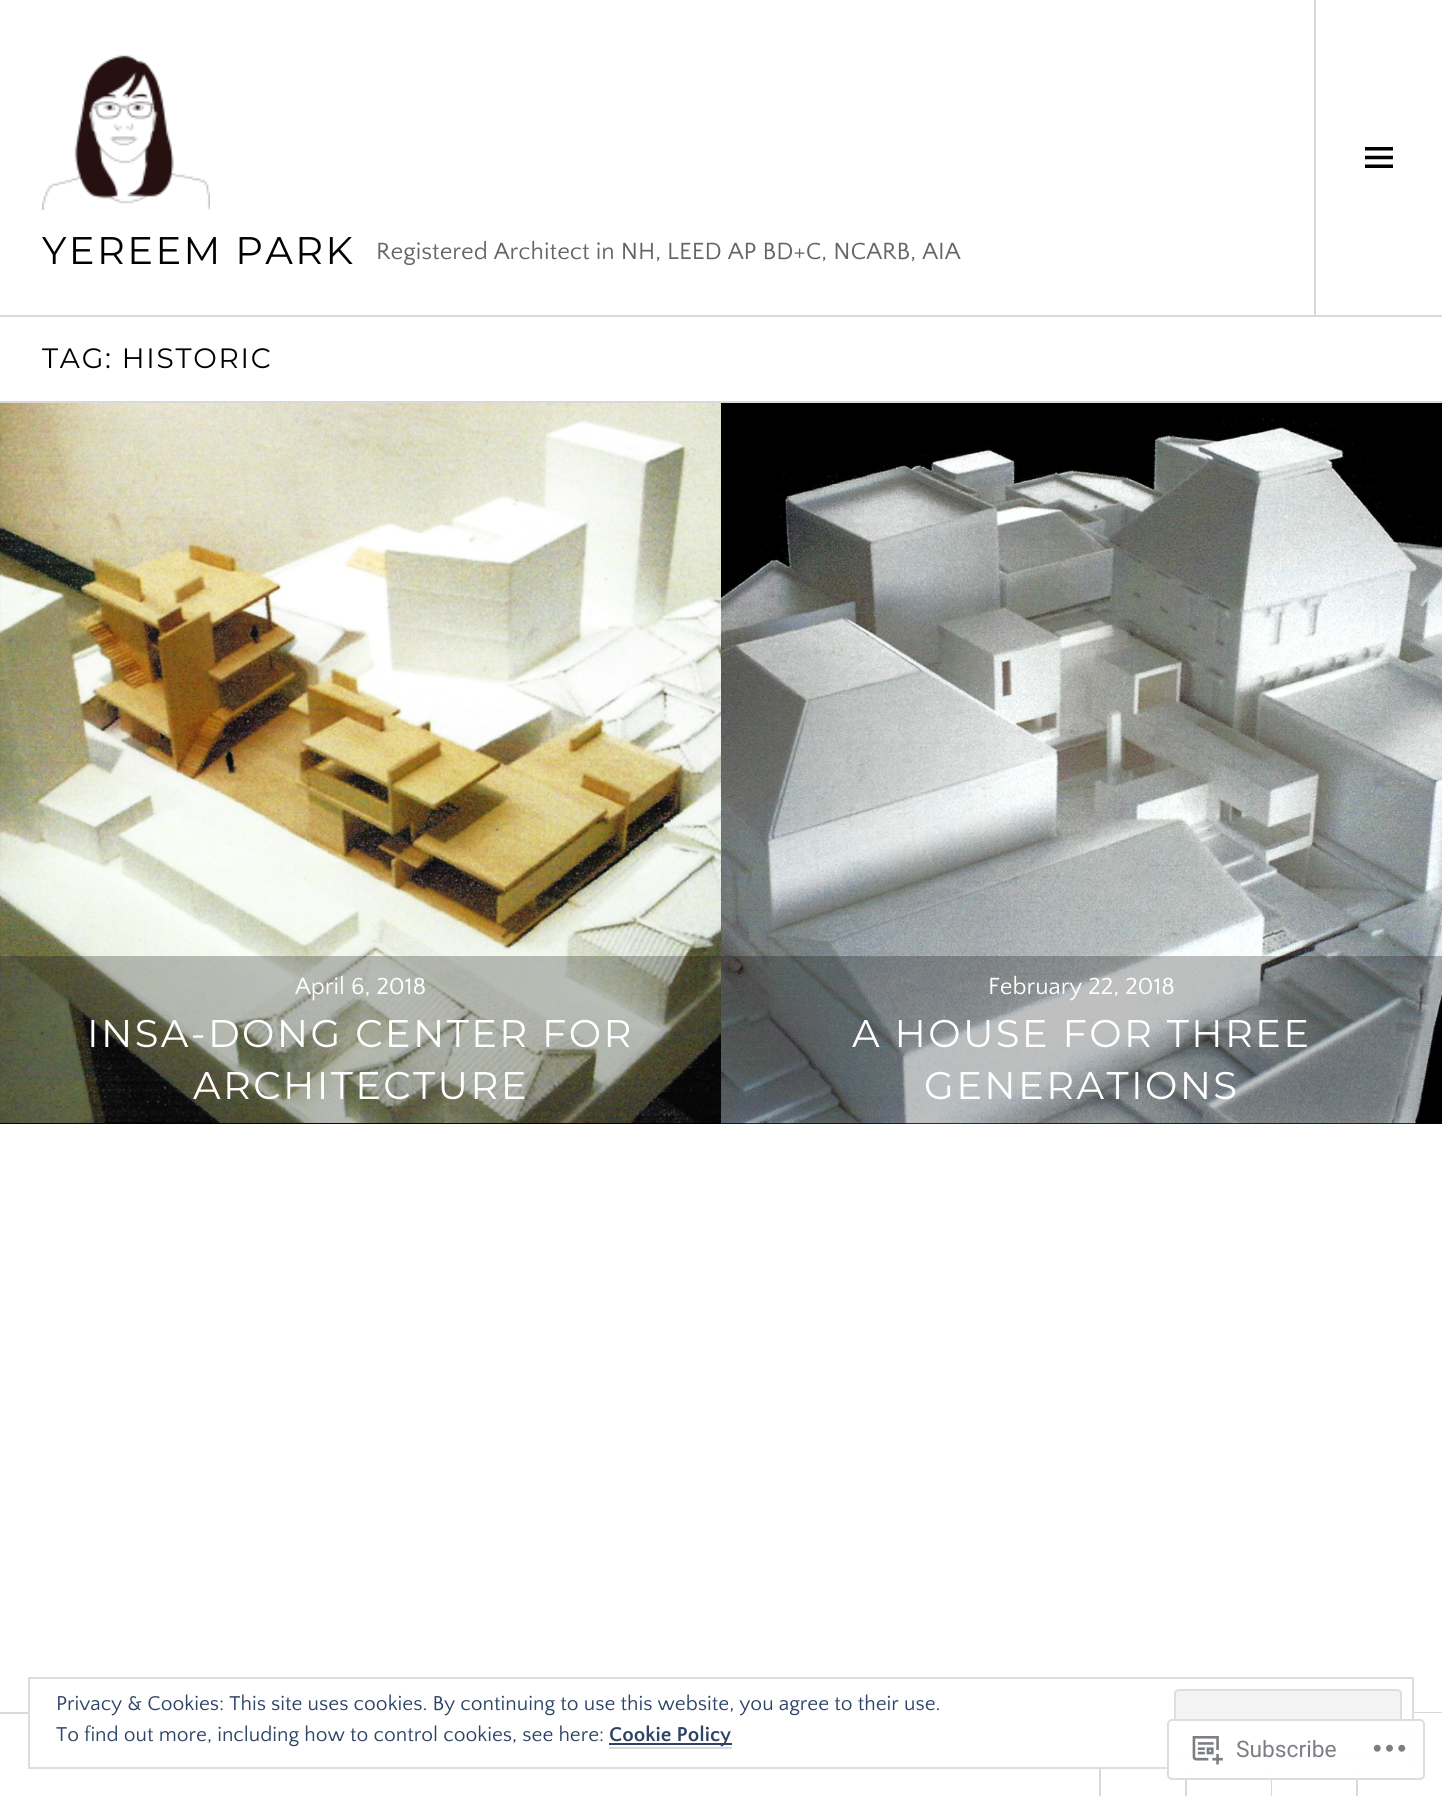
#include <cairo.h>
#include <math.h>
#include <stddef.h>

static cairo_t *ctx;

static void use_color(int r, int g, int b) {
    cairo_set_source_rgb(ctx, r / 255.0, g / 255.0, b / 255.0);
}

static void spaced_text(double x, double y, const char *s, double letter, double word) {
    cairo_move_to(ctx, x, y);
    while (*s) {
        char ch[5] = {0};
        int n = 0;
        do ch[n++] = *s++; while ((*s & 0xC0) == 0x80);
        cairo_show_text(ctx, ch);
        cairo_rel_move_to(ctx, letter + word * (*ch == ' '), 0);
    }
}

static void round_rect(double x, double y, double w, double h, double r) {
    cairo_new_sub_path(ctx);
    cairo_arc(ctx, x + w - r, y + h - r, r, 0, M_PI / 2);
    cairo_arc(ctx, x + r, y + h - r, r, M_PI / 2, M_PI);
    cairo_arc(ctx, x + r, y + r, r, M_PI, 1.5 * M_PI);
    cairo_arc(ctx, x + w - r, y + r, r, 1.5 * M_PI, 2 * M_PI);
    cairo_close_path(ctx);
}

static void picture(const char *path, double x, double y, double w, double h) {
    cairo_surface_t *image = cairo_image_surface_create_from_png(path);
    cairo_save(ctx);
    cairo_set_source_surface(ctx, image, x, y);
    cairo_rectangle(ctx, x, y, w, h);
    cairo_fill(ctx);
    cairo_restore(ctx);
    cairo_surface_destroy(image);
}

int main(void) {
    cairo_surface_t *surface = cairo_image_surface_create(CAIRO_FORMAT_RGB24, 1442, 1796);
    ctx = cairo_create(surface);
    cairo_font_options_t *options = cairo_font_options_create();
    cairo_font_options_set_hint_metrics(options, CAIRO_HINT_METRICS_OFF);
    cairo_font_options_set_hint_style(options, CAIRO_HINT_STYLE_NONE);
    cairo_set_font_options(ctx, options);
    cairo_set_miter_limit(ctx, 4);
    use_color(255, 255, 255);
    cairo_paint(ctx);
    use_color(217, 217, 217);
    cairo_rectangle(ctx, 0, 315, 1442, 2);
    cairo_fill(ctx);
    picture("img1.png", 42, 55, 168, 155);
    cairo_select_font_face(ctx, "Montserrat Thin", CAIRO_FONT_SLANT_NORMAL, CAIRO_FONT_WEIGHT_NORMAL);
    cairo_set_font_size(ctx, 38.5);
    use_color(0, 0, 0);
    spaced_text(42, 264, "YEREEM PARK", 2.4, 0);
    cairo_select_font_face(ctx, "Quattrocento Sans", CAIRO_FONT_SLANT_NORMAL, CAIRO_FONT_WEIGHT_NORMAL);
    cairo_set_font_size(ctx, 24.5);
    use_color(102, 102, 102);
    cairo_move_to(ctx, 376, 259);
    cairo_show_text(ctx, "Registered Architect in NH, LEED AP BD+C, NCARB, AIA");
    use_color(217, 217, 217);
    cairo_rectangle(ctx, 1314, 0, 2, 315);
    cairo_fill(ctx);
    picture("img2.png", 1365, 147, 28, 21);
    cairo_rectangle(ctx, 0, 401, 1442, 2);
    cairo_fill(ctx);
    cairo_select_font_face(ctx, "Montserrat Thin", CAIRO_FONT_SLANT_NORMAL, CAIRO_FONT_WEIGHT_NORMAL);
    cairo_set_font_size(ctx, 28);
    use_color(0, 0, 0);
    spaced_text(42, 368, "TAG: HISTORIC", 1.75, 0);
    cairo_rectangle(ctx, 0, 403, 721, 721);
    cairo_fill(ctx);
    picture("img3.png", 0, 403, 721, 721);
    cairo_set_source_rgba(ctx, 0, 0, 0, 0.25);
    cairo_rectangle(ctx, 0, 956, 721, 168);
    cairo_fill(ctx);
    cairo_select_font_face(ctx, "Quattrocento Sans", CAIRO_FONT_SLANT_NORMAL, CAIRO_FONT_WEIGHT_NORMAL);
    cairo_set_font_size(ctx, 24.5);
    use_color(255, 255, 255);
    cairo_move_to(ctx, 295, 994);
    cairo_show_text(ctx, "April 6, 2018");
    cairo_select_font_face(ctx, "Montserrat Thin", CAIRO_FONT_SLANT_NORMAL, CAIRO_FONT_WEIGHT_NORMAL);
    cairo_set_font_size(ctx, 38.5);
    spaced_text(87, 1047, "INSA-DONG CENTER FOR", 2.4, 0);
    spaced_text(193, 1099, "ARCHITECTURE", 2.4, 0);
    use_color(0, 0, 0);
    cairo_rectangle(ctx, 721, 1123, 721, 1);
    cairo_fill(ctx);
    picture("img4.png", 721, 403, 721, 721);
    cairo_set_source_rgba(ctx, 0, 0, 0, 0.25);
    cairo_rectangle(ctx, 721, 956, 721, 168);
    cairo_fill(ctx);
    cairo_select_font_face(ctx, "Quattrocento Sans", CAIRO_FONT_SLANT_NORMAL, CAIRO_FONT_WEIGHT_NORMAL);
    cairo_set_font_size(ctx, 24.5);
    use_color(255, 255, 255);
    cairo_move_to(ctx, 988, 994);
    cairo_show_text(ctx, "February 22, 2018");
    cairo_select_font_face(ctx, "Montserrat Thin", CAIRO_FONT_SLANT_NORMAL, CAIRO_FONT_WEIGHT_NORMAL);
    cairo_set_font_size(ctx, 38.5);
    spaced_text(852, 1047, "A HOUSE FOR THREE", 2.4, 0);
    spaced_text(924, 1099, "GENERATIONS", 2.4, 0);
    use_color(217, 217, 217);
    cairo_rectangle(ctx, 0, 1712, 1442, 2);
    cairo_fill(ctx);
    cairo_rectangle(ctx, 1100, 1713, 86, 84);
    cairo_stroke(ctx);
    cairo_rectangle(ctx, 1186, 1713, 85, 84);
    cairo_stroke(ctx);
    use_color(255, 255, 255);
    cairo_rectangle(ctx, 1270, 1769, 1, 27);
    cairo_fill(ctx);
    cairo_rectangle(ctx, 1272, 1713, 85, 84);
    use_color(217, 217, 217);
    cairo_stroke(ctx);
    use_color(255, 255, 255);
    cairo_rectangle(ctx, 1272, 1769, 1, 27);
    cairo_fill(ctx);
    cairo_rectangle(ctx, 1358, 1713, 84, 1);
    cairo_fill(ctx);
    cairo_rectangle(ctx, 30, 1712, 1382, 55);
    cairo_fill(ctx);
    cairo_rectangle(ctx, 29, 1678, 1384, 90);
    use_color(222, 222, 222);
    cairo_stroke(ctx);
    cairo_select_font_face(ctx, "Quattrocento Sans", CAIRO_FONT_SLANT_NORMAL, CAIRO_FONT_WEIGHT_NORMAL);
    cairo_set_font_size(ctx, 21);
    use_color(46, 68, 103);
    cairo_move_to(ctx, 56, 1710);
    cairo_show_text(ctx, "Privacy & Cookies: This site uses cookies. By continuing to use this website, you agree to their use.");
    use_color(243, 243, 243);
    round_rect(1175, 1690, 226, 66, 4);
    cairo_fill_preserve(ctx);
    use_color(222, 222, 222);
    cairo_stroke(ctx);
    use_color(46, 68, 103);
    cairo_move_to(ctx, 56, 1741);
    cairo_show_text(ctx, "To find out more, including how to control cookies, see here:");
    cairo_rectangle(ctx, 609, 1743, 123, 2);
    cairo_fill(ctx);
    cairo_select_font_face(ctx, "Quattrocento Sans", CAIRO_FONT_SLANT_NORMAL, CAIRO_FONT_WEIGHT_BOLD);
    cairo_move_to(ctx, 609, 1741);
    cairo_show_text(ctx, "Cookie Policy");
    use_color(217, 217, 217);
    cairo_rectangle(ctx, 609, 1747, 123, 2);
    cairo_fill(ctx);
    cairo_set_source_rgba(ctx, 1, 1, 1, 0.98);
    round_rect(1167, 1719, 258, 61, 5);
    cairo_fill(ctx);
    round_rect(1168, 1720, 256, 59, 4);
    cairo_set_source_rgba(ctx, 0.863, 0.863, 0.871, 0.98);
    cairo_stroke(ctx);
    picture("img5.png", 1192, 1736, 31, 29);
    cairo_select_font_face(ctx, "Roboto", CAIRO_FONT_SLANT_NORMAL, CAIRO_FONT_WEIGHT_NORMAL);
    cairo_set_font_size(ctx, 22.75);
    use_color(123, 127, 132);
    cairo_move_to(ctx, 1236, 1757);
    cairo_show_text(ctx, "Subscribe");
    picture("img6.png", 1373, 1744, 33, 8);
    cairo_surface_write_to_png(surface, "result.png");
    cairo_font_options_destroy(options);
    cairo_destroy(ctx);
    cairo_surface_destroy(surface);
    return 0;
}
